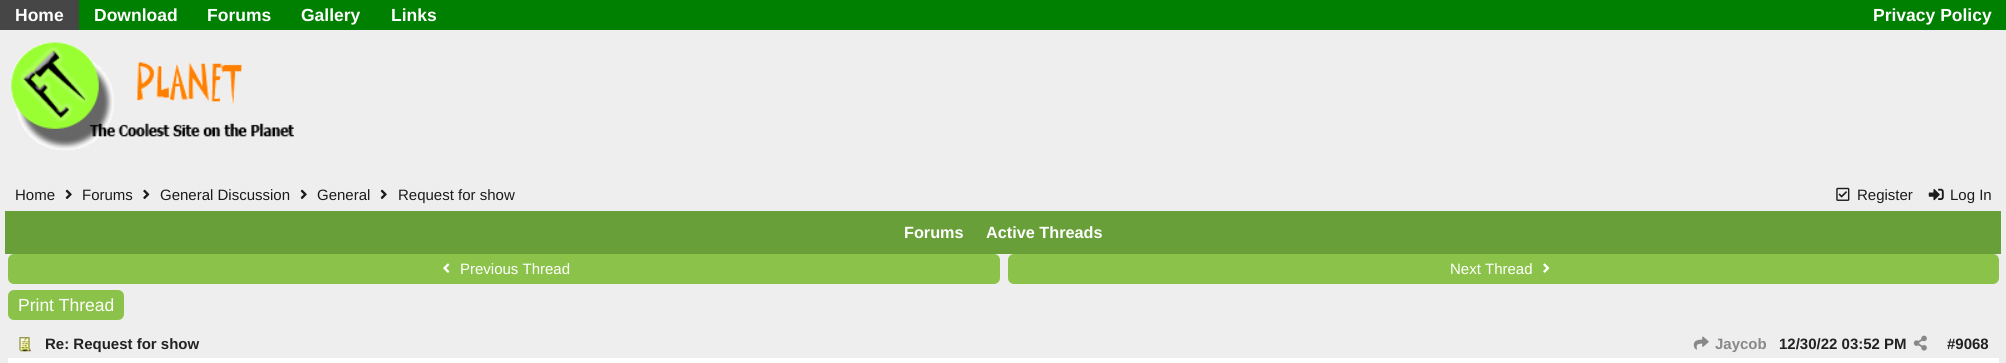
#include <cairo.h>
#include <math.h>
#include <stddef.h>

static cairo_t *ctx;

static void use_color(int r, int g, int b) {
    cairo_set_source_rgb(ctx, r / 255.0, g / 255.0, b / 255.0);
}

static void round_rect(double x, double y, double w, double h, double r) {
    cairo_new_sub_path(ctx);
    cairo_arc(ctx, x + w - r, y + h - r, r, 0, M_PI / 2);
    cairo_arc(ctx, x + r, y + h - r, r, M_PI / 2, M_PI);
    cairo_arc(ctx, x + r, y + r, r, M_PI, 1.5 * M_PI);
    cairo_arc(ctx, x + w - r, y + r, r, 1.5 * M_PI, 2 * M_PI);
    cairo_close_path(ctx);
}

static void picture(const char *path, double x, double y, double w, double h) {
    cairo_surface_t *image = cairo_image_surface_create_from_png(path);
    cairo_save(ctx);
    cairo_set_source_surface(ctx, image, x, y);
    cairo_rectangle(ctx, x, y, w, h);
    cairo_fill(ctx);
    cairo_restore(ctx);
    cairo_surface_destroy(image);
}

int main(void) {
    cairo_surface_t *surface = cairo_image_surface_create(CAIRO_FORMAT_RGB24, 2006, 363);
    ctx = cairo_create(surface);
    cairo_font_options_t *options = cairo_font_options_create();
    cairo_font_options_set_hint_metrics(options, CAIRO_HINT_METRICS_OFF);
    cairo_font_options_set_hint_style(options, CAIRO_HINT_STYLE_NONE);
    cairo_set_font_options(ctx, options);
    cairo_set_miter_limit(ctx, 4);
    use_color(238, 238, 238);
    cairo_paint(ctx);
    use_color(0, 128, 0);
    cairo_rectangle(ctx, 79, 0, 1927, 30);
    cairo_fill(ctx);
    use_color(70, 70, 70);
    cairo_rectangle(ctx, 0, 0, 79, 30);
    cairo_fill(ctx);
    cairo_select_font_face(ctx, "Liberation Sans", CAIRO_FONT_SLANT_NORMAL, CAIRO_FONT_WEIGHT_BOLD);
    cairo_set_font_size(ctx, 17.5);
    use_color(255, 255, 255);
    cairo_move_to(ctx, 15, 21);
    cairo_show_text(ctx, "Home");
    cairo_move_to(ctx, 94, 21);
    cairo_show_text(ctx, "Download");
    cairo_move_to(ctx, 207, 21);
    cairo_show_text(ctx, "Forums");
    cairo_move_to(ctx, 301, 21);
    cairo_show_text(ctx, "Gallery");
    cairo_move_to(ctx, 391, 21);
    cairo_show_text(ctx, "Links");
    cairo_move_to(ctx, 1873, 21);
    cairo_show_text(ctx, "Privacy Policy");
    picture("img1.png", 11, 42, 283, 108);
    cairo_select_font_face(ctx, "Liberation Sans", CAIRO_FONT_SLANT_NORMAL, CAIRO_FONT_WEIGHT_NORMAL);
    cairo_set_font_size(ctx, 15);
    use_color(27, 27, 27);
    cairo_move_to(ctx, 15, 200);
    cairo_show_text(ctx, "Home");
    picture("img2.png", 65, 189, 7, 10);
    cairo_move_to(ctx, 82, 200);
    cairo_show_text(ctx, "Forums");
    picture("img3.png", 143, 189, 7, 10);
    cairo_move_to(ctx, 160, 200);
    cairo_show_text(ctx, "General Discussion");
    picture("img2.png", 300, 189, 7, 10);
    cairo_move_to(ctx, 317, 200);
    cairo_show_text(ctx, "General");
    picture("img2.png", 380, 189, 7, 10);
    cairo_move_to(ctx, 398, 200);
    cairo_show_text(ctx, "Request for show");
    picture("img4.png", 1836, 187, 14, 14);
    cairo_move_to(ctx, 1857, 200);
    cairo_show_text(ctx, "Register");
    picture("img5.png", 1928, 188, 16, 13);
    cairo_move_to(ctx, 1950, 200);
    cairo_show_text(ctx, "Log In");
    use_color(104, 159, 56);
    cairo_rectangle(ctx, 5, 211, 1996, 43);
    cairo_fill(ctx);
    cairo_select_font_face(ctx, "Liberation Sans", CAIRO_FONT_SLANT_NORMAL, CAIRO_FONT_WEIGHT_BOLD);
    cairo_set_font_size(ctx, 16.25);
    use_color(255, 255, 255);
    cairo_move_to(ctx, 904, 238);
    cairo_show_text(ctx, "Forums");
    cairo_move_to(ctx, 986, 238);
    cairo_show_text(ctx, "Active Threads");
    use_color(139, 195, 74);
    round_rect(8, 254, 992, 30, 6);
    cairo_fill(ctx);
    picture("img6.png", 443, 263, 7, 10);
    cairo_select_font_face(ctx, "Liberation Sans", CAIRO_FONT_SLANT_NORMAL, CAIRO_FONT_WEIGHT_NORMAL);
    cairo_set_font_size(ctx, 15);
    use_color(255, 255, 255);
    cairo_move_to(ctx, 460, 274);
    cairo_show_text(ctx, "Previous Thread");
    use_color(139, 195, 74);
    round_rect(1008, 254, 991, 30, 6);
    cairo_fill(ctx);
    use_color(255, 255, 255);
    cairo_move_to(ctx, 1450, 274);
    cairo_show_text(ctx, "Next Thread");
    picture("img7.png", 1543, 263, 7, 10);
    use_color(139, 195, 74);
    round_rect(8, 290, 116, 30, 6);
    cairo_fill(ctx);
    cairo_set_font_size(ctx, 17.5);
    use_color(255, 255, 255);
    cairo_move_to(ctx, 18, 311);
    cairo_show_text(ctx, "Print Thread");
    cairo_rectangle(ctx, 8, 358, 1991, 5);
    cairo_fill(ctx);
    picture("img8.png", 19, 337, 12, 15);
    cairo_select_font_face(ctx, "Liberation Sans", CAIRO_FONT_SLANT_NORMAL, CAIRO_FONT_WEIGHT_BOLD);
    cairo_set_font_size(ctx, 15);
    use_color(34, 34, 34);
    cairo_move_to(ctx, 45, 349);
    cairo_show_text(ctx, "Re: Request for show");
    picture("img9.png", 1693, 336, 16, 14);
    use_color(136, 136, 136);
    cairo_move_to(ctx, 1715, 349);
    cairo_show_text(ctx, "Jaycob");
    use_color(34, 34, 34);
    cairo_move_to(ctx, 1779, 349);
    cairo_show_text(ctx, "12/30/22 03:52 PM");
    picture("img10.png", 1913, 335, 14, 16);
    cairo_move_to(ctx, 1947, 349);
    cairo_show_text(ctx, "#9068");
    cairo_surface_write_to_png(surface, "result.png");
    cairo_font_options_destroy(options);
    cairo_destroy(ctx);
    cairo_surface_destroy(surface);
    return 0;
}
